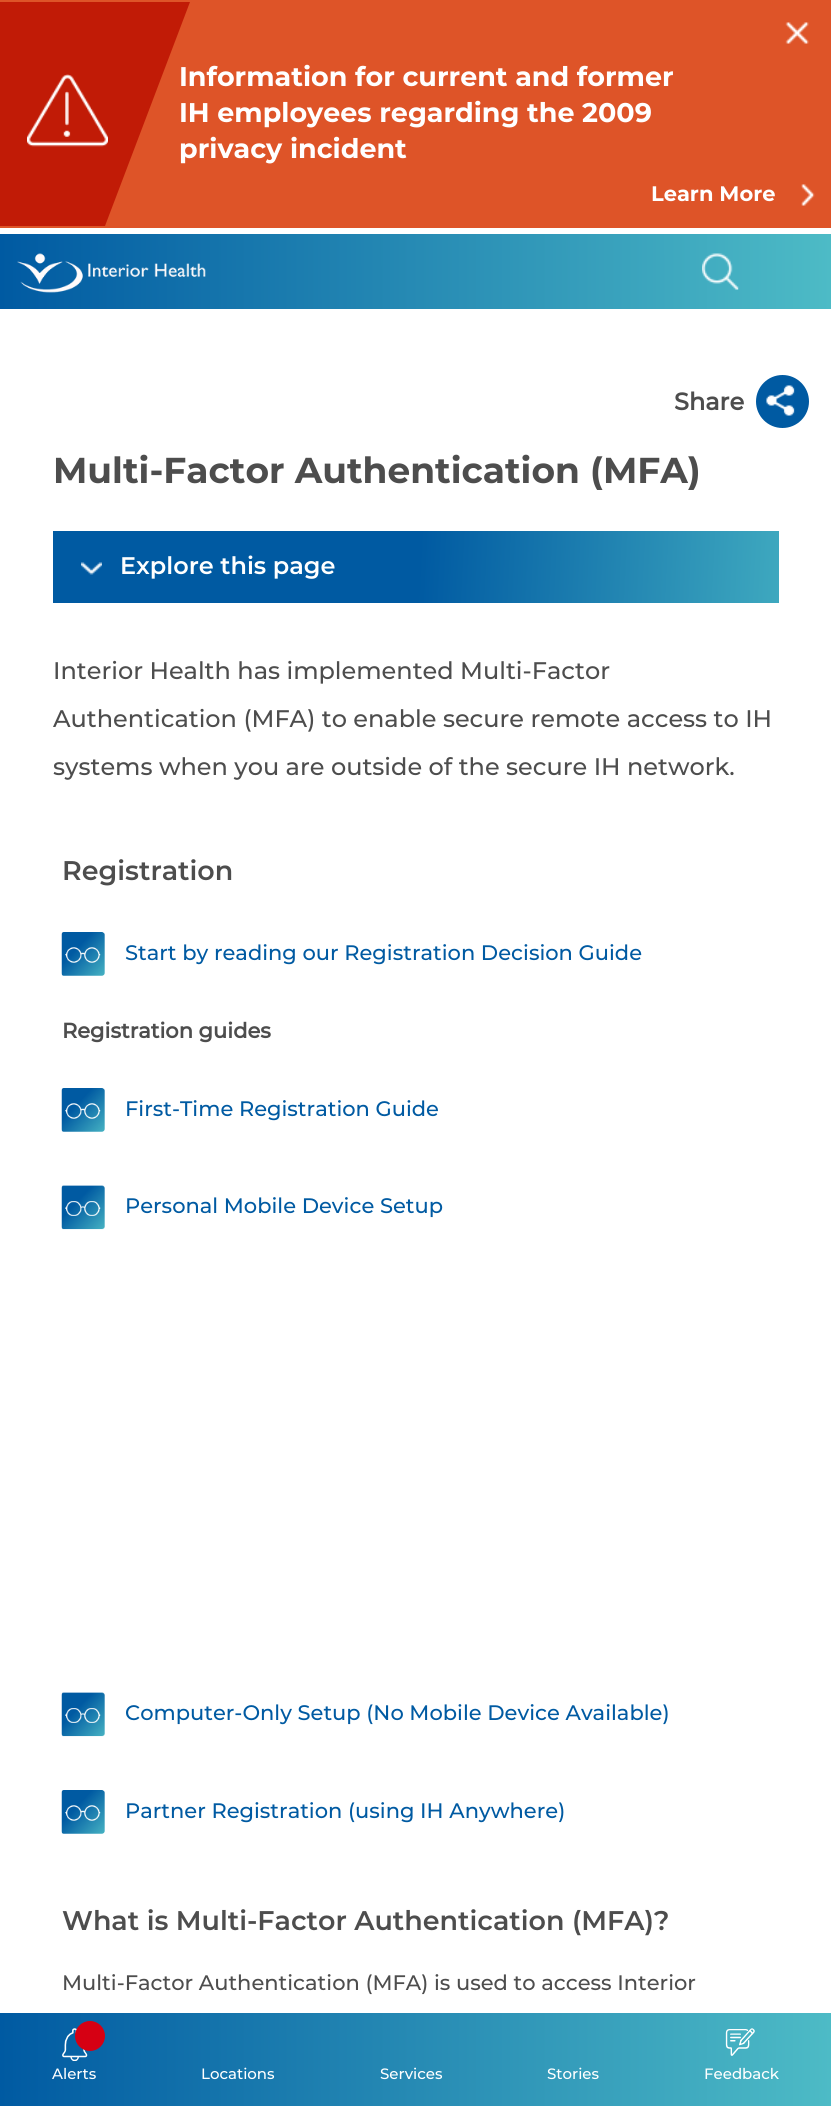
#include <cairo.h>
#include <math.h>
#include <stddef.h>

static cairo_t *ctx;

static void use_color(int r, int g, int b) {
    cairo_set_source_rgb(ctx, r / 255.0, g / 255.0, b / 255.0);
}

static void picture(const char *path, double x, double y, double w, double h) {
    cairo_surface_t *image = cairo_image_surface_create_from_png(path);
    cairo_save(ctx);
    cairo_set_source_surface(ctx, image, x, y);
    cairo_rectangle(ctx, x, y, w, h);
    cairo_fill(ctx);
    cairo_restore(ctx);
    cairo_surface_destroy(image);
}

int main(void) {
    cairo_surface_t *surface = cairo_image_surface_create(CAIRO_FORMAT_RGB24, 831, 2106);
    ctx = cairo_create(surface);
    cairo_font_options_t *options = cairo_font_options_create();
    cairo_font_options_set_hint_metrics(options, CAIRO_HINT_METRICS_OFF);
    cairo_font_options_set_hint_style(options, CAIRO_HINT_STYLE_NONE);
    cairo_set_font_options(ctx, options);
    cairo_set_miter_limit(ctx, 4);
    cairo_pattern_t *gradient;
    use_color(255, 255, 255);
    cairo_paint(ctx);
    use_color(222, 84, 40);
    cairo_rectangle(ctx, 0, 0, 831, 228);
    cairo_fill(ctx);
    cairo_select_font_face(ctx, "Montserrat", CAIRO_FONT_SLANT_NORMAL, CAIRO_FONT_WEIGHT_BOLD);
    cairo_set_font_size(ctx, 27);
    use_color(255, 255, 255);
    cairo_move_to(ctx, 179, 86);
    cairo_show_text(ctx, "Information for current and former");
    cairo_move_to(ctx, 179, 122);
    cairo_show_text(ctx, "IH employees regarding the 2009");
    cairo_move_to(ctx, 179, 158);
    cairo_show_text(ctx, "privacy incident");
    use_color(193, 27, 6);
    cairo_new_path(ctx);
    cairo_move_to(ctx, 0, 2);
    cairo_line_to(ctx, 0, 226);
    cairo_line_to(ctx, 105, 226);
    cairo_line_to(ctx, 190, 2);
    cairo_close_path(ctx);
    cairo_fill(ctx);
    picture("img1.png", 27, 74, 81, 73);
    picture("img2.png", 785, 22, 24, 22);
    cairo_set_font_size(ctx, 21);
    use_color(255, 255, 255);
    cairo_move_to(ctx, 651, 201);
    cairo_show_text(ctx, "Learn More");
    picture("img3.png", 801, 184, 14, 22);
    gradient = cairo_pattern_create_linear(0, 272, 831, 271);
    cairo_pattern_add_color_stop_rgba(gradient, 0, 0, 0.353, 0.635, 1);
    cairo_pattern_add_color_stop_rgba(gradient, 1, 0.302, 0.733, 0.776, 1);
    cairo_set_source(ctx, gradient);
    cairo_pattern_destroy(gradient);
    cairo_rectangle(ctx, 0, 234, 831, 75);
    cairo_fill(ctx);
    picture("img4.png", 17, 253, 189, 40);
    picture("img5.png", 702, 253, 37, 37);
    gradient = cairo_pattern_create_linear(0, 2060, 831, 2060);
    cairo_pattern_add_color_stop_rgba(gradient, 0, 0, 0.353, 0.635, 1);
    cairo_pattern_add_color_stop_rgba(gradient, 1, 0.302, 0.733, 0.776, 1);
    cairo_set_source(ctx, gradient);
    cairo_pattern_destroy(gradient);
    cairo_rectangle(ctx, 0, 2013, 831, 93);
    cairo_fill(ctx);
    picture("img6.png", 62, 2028, 26, 33);
    use_color(214, 0, 19);
    cairo_arc(ctx, 90, 2036, 15, 0, 2 * M_PI);
    cairo_fill(ctx);
    cairo_select_font_face(ctx, "Montserrat Medium", CAIRO_FONT_SLANT_NORMAL, CAIRO_FONT_WEIGHT_NORMAL);
    cairo_set_font_size(ctx, 15);
    use_color(255, 255, 255);
    cairo_move_to(ctx, 52, 2079);
    cairo_show_text(ctx, "Alerts");
    cairo_move_to(ctx, 201, 2079);
    cairo_show_text(ctx, "Locations");
    cairo_move_to(ctx, 380, 2079);
    cairo_show_text(ctx, "Services");
    cairo_move_to(ctx, 547, 2079);
    cairo_show_text(ctx, "Stories");
    picture("img7.png", 725, 2028, 30, 28);
    cairo_move_to(ctx, 704, 2079);
    cairo_show_text(ctx, "Feedback");
    use_color(0, 90, 162);
    cairo_new_path(ctx);
    cairo_arc(ctx, 782.5, 401.5, 26.5, 0, 2 * M_PI);
    cairo_fill(ctx);
    cairo_select_font_face(ctx, "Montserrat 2", CAIRO_FONT_SLANT_NORMAL, CAIRO_FONT_WEIGHT_BOLD);
    cairo_set_font_size(ctx, 24);
    use_color(77, 77, 77);
    cairo_move_to(ctx, 674, 410);
    cairo_show_text(ctx, "Share");
    picture("img8.png", 766, 385, 29, 31);
    cairo_select_font_face(ctx, "Montserrat", CAIRO_FONT_SLANT_NORMAL, CAIRO_FONT_WEIGHT_BOLD);
    cairo_set_font_size(ctx, 36);
    cairo_move_to(ctx, 53, 483);
    cairo_show_text(ctx, "Multi-Factor Authentication (MFA)");
    gradient = cairo_pattern_create_linear(52, 548, 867, 591);
    cairo_pattern_add_color_stop_rgba(gradient, 0.45, 0, 0.353, 0.635, 1);
    cairo_pattern_add_color_stop_rgba(gradient, 1, 0.302, 0.733, 0.776, 1);
    cairo_set_source(ctx, gradient);
    cairo_pattern_destroy(gradient);
    cairo_rectangle(ctx, 53, 531, 726, 72);
    cairo_fill(ctx);
    picture("img9.png", 81, 562, 21, 13);
    cairo_select_font_face(ctx, "Montserrat SemiBold", CAIRO_FONT_SLANT_NORMAL, CAIRO_FONT_WEIGHT_NORMAL);
    cairo_set_font_size(ctx, 24);
    use_color(255, 255, 255);
    cairo_move_to(ctx, 120, 574);
    cairo_show_text(ctx, "Explore this page");
    cairo_select_font_face(ctx, "Montserrat Medium", CAIRO_FONT_SLANT_NORMAL, CAIRO_FONT_WEIGHT_NORMAL);
    use_color(77, 77, 77);
    cairo_move_to(ctx, 53, 679);
    cairo_show_text(ctx, "Interior Health has implemented Multi-Factor");
    cairo_move_to(ctx, 53, 727);
    cairo_show_text(ctx, "Authentication (MFA) to enable secure remote access to IH");
    cairo_move_to(ctx, 53, 775);
    cairo_show_text(ctx, "systems when you are outside of the secure IH network.");
    cairo_select_font_face(ctx, "Montserrat SemiBold", CAIRO_FONT_SLANT_NORMAL, CAIRO_FONT_WEIGHT_NORMAL);
    cairo_set_font_size(ctx, 27);
    cairo_move_to(ctx, 62, 880);
    cairo_show_text(ctx, "Registration");
    picture("img10.png", 61, 932, 44, 44);
    cairo_select_font_face(ctx, "Montserrat Medium", CAIRO_FONT_SLANT_NORMAL, CAIRO_FONT_WEIGHT_NORMAL);
    cairo_set_font_size(ctx, 21);
    use_color(0, 90, 162);
    cairo_move_to(ctx, 125, 960);
    cairo_show_text(ctx, "Start by reading our Registration Decision Guide");
    cairo_select_font_face(ctx, "Montserrat 2", CAIRO_FONT_SLANT_NORMAL, CAIRO_FONT_WEIGHT_BOLD);
    use_color(77, 77, 77);
    cairo_move_to(ctx, 62, 1038);
    cairo_show_text(ctx, "Registration guides");
    picture("img10.png", 61, 1088, 44, 44);
    cairo_select_font_face(ctx, "Montserrat Medium", CAIRO_FONT_SLANT_NORMAL, CAIRO_FONT_WEIGHT_NORMAL);
    use_color(0, 90, 162);
    cairo_move_to(ctx, 125, 1116);
    cairo_show_text(ctx, "First-Time Registration Guide");
    picture("img11.png", 61, 1185, 44, 45);
    cairo_move_to(ctx, 125, 1213);
    cairo_show_text(ctx, "Personal Mobile Device Setup");
    picture("img11.png", 61, 1692, 44, 45);
    cairo_move_to(ctx, 125, 1720);
    cairo_show_text(ctx, "Computer-Only Setup (No Mobile Device Available)");
    picture("img10.png", 61, 1790, 44, 44);
    cairo_move_to(ctx, 125, 1818);
    cairo_show_text(ctx, "Partner Registration (using IH Anywhere)");
    cairo_select_font_face(ctx, "Montserrat SemiBold", CAIRO_FONT_SLANT_NORMAL, CAIRO_FONT_WEIGHT_NORMAL);
    cairo_set_font_size(ctx, 27);
    use_color(77, 77, 77);
    cairo_move_to(ctx, 62, 1930);
    cairo_show_text(ctx, "What is Multi-Factor Authentication (MFA)?");
    cairo_select_font_face(ctx, "Montserrat Medium", CAIRO_FONT_SLANT_NORMAL, CAIRO_FONT_WEIGHT_NORMAL);
    cairo_set_font_size(ctx, 21);
    cairo_move_to(ctx, 62, 1990);
    cairo_show_text(ctx, "Multi-Factor Authentication (MFA) is used to access Interior");
    cairo_surface_write_to_png(surface, "result.png");
    cairo_font_options_destroy(options);
    cairo_destroy(ctx);
    cairo_surface_destroy(surface);
    return 0;
}
